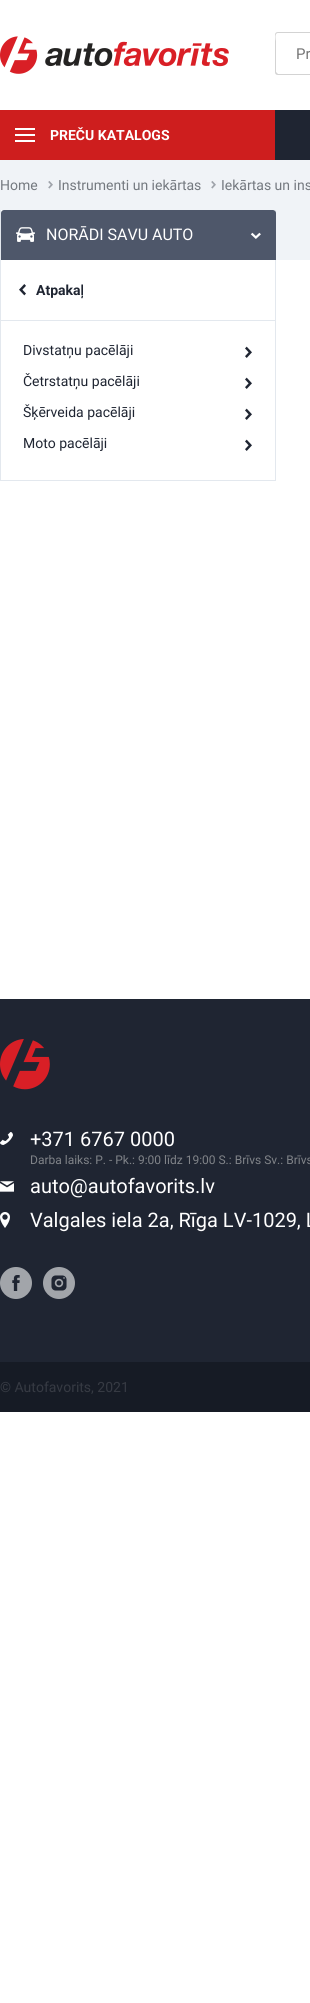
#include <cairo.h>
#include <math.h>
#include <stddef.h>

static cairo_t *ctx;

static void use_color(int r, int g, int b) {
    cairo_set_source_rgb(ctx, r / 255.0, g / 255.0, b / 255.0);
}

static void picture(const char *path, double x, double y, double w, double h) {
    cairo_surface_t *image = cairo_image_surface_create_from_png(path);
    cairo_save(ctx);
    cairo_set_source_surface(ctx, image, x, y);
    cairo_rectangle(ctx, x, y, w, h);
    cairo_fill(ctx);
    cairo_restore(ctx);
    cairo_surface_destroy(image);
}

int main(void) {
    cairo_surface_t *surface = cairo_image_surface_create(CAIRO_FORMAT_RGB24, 310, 2003);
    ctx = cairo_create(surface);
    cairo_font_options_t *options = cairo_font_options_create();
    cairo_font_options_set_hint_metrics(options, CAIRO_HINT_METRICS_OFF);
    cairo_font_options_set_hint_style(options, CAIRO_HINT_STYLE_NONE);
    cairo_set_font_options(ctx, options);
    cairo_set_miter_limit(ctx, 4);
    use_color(255, 255, 255);
    cairo_paint(ctx);
    picture("img1.png", 0, 36, 229, 38);
    use_color(211, 211, 211);
    cairo_set_fill_rule(ctx, CAIRO_FILL_RULE_EVEN_ODD);
    cairo_new_path(ctx);
    cairo_move_to(ctx, 278, 32);
    cairo_line_to(ctx, 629, 32);
    cairo_line_to(ctx, 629, 75);
    cairo_line_to(ctx, 278, 75);
    cairo_curve_to(ctx, 276, 75, 275, 74, 275, 72);
    cairo_line_to(ctx, 275, 35);
    cairo_curve_to(ctx, 275, 33, 276, 32, 278, 32);
    cairo_close_path(ctx);
    cairo_move_to(ctx, 278, 33);
    cairo_line_to(ctx, 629, 33);
    cairo_line_to(ctx, 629, 74);
    cairo_line_to(ctx, 278, 74);
    cairo_line_to(ctx, 276, 72);
    cairo_line_to(ctx, 276, 41);
    cairo_curve_to(ctx, 276, 41, 274, 33, 278, 33);
    cairo_close_path(ctx);
    cairo_fill(ctx);
    cairo_select_font_face(ctx, "Roboto", CAIRO_FONT_SLANT_NORMAL, CAIRO_FONT_WEIGHT_NORMAL);
    cairo_set_font_size(ctx, 15);
    use_color(117, 117, 117);
    cairo_move_to(ctx, 296, 59);
    cairo_show_text(ctx, "Pr");
    use_color(31, 37, 50);
    cairo_rectangle(ctx, 275, 110, 35, 50);
    cairo_fill(ctx);
    use_color(206, 30, 30);
    cairo_rectangle(ctx, 0, 110, 275, 50);
    cairo_fill(ctx);
    use_color(255, 255, 255);
    cairo_rectangle(ctx, 15, 128, 20, 2);
    cairo_fill(ctx);
    cairo_rectangle(ctx, 15, 134, 20, 2);
    cairo_fill(ctx);
    cairo_rectangle(ctx, 15, 140, 20, 2);
    cairo_fill(ctx);
    cairo_select_font_face(ctx, "Roboto", CAIRO_FONT_SLANT_NORMAL, CAIRO_FONT_WEIGHT_BOLD);
    cairo_set_font_size(ctx, 14);
    cairo_move_to(ctx, 50, 140);
    cairo_show_text(ctx, "PREČU KATALOGS");
    use_color(240, 243, 247);
    cairo_rectangle(ctx, 0, 160, 310, 100);
    cairo_fill(ctx);
    cairo_select_font_face(ctx, "Roboto", CAIRO_FONT_SLANT_NORMAL, CAIRO_FONT_WEIGHT_NORMAL);
    use_color(116, 121, 127);
    cairo_move_to(ctx, 0, 190);
    cairo_show_text(ctx, "Home");
    picture("img2.png", 48, 181, 5, 8);
    cairo_move_to(ctx, 58, 190);
    cairo_show_text(ctx, "Instrumenti un iekārtas");
    picture("img2.png", 211, 181, 5, 8);
    cairo_move_to(ctx, 221, 190);
    cairo_show_text(ctx, "Iekārtas un ins");
    use_color(255, 255, 255);
    cairo_rectangle(ctx, 1, 210, 274, 50);
    cairo_fill(ctx);
    use_color(227, 232, 238);
    cairo_rectangle(ctx, 275, 210, 1, 271);
    cairo_fill(ctx);
    cairo_rectangle(ctx, 0, 480, 276, 1);
    cairo_fill(ctx);
    cairo_rectangle(ctx, 0, 210, 1, 271);
    cairo_fill(ctx);
    use_color(78, 87, 106);
    cairo_new_path(ctx);
    cairo_move_to(ctx, 4, 210);
    cairo_line_to(ctx, 273, 210);
    cairo_curve_to(ctx, 274.5, 210, 276, 211.5, 276, 213);
    cairo_line_to(ctx, 276, 260);
    cairo_line_to(ctx, 1, 260);
    cairo_line_to(ctx, 1, 213);
    cairo_curve_to(ctx, 1, 211.5, 2.5, 210, 4, 210);
    cairo_close_path(ctx);
    cairo_fill(ctx);
    picture("img3.png", 16, 227, 19, 15);
    cairo_set_font_size(ctx, 16);
    use_color(255, 255, 255);
    cairo_move_to(ctx, 46, 240);
    cairo_show_text(ctx, "NORĀDI SAVU AUTO");
    picture("img4.png", 250, 232, 11, 7);
    use_color(227, 232, 238);
    cairo_rectangle(ctx, 1, 320, 274, 1);
    cairo_fill(ctx);
    picture("img5.png", 19, 284, 7, 12);
    cairo_select_font_face(ctx, "Roboto", CAIRO_FONT_SLANT_NORMAL, CAIRO_FONT_WEIGHT_BOLD);
    cairo_set_font_size(ctx, 14);
    use_color(31, 37, 50);
    cairo_move_to(ctx, 36, 295);
    cairo_show_text(ctx, "Atpakaļ");
    picture("img6.png", 245, 346, 7, 12);
    cairo_select_font_face(ctx, "Roboto", CAIRO_FONT_SLANT_NORMAL, CAIRO_FONT_WEIGHT_NORMAL);
    cairo_move_to(ctx, 23, 355);
    cairo_show_text(ctx, "Divstatņu pacēlāji");
    picture("img6.png", 245, 377, 7, 12);
    cairo_move_to(ctx, 23, 386);
    cairo_show_text(ctx, "Četrstatņu pacēlāji");
    picture("img6.png", 245, 408, 7, 12);
    cairo_move_to(ctx, 23, 417);
    cairo_show_text(ctx, "Šķērveida pacēlāji");
    picture("img6.png", 245, 439, 7, 12);
    cairo_move_to(ctx, 23, 448);
    cairo_show_text(ctx, "Moto pacēlāji");
    use_color(22, 27, 37);
    cairo_rectangle(ctx, 0, 1362, 310, 50);
    cairo_fill(ctx);
    use_color(31, 37, 50);
    cairo_rectangle(ctx, 0, 999, 310, 363);
    cairo_fill(ctx);
    picture("img7.png", 0, 1039, 50, 51);
    picture("img8.png", 0, 1132, 13, 13);
    cairo_set_font_size(ctx, 20);
    use_color(255, 255, 255);
    cairo_move_to(ctx, 30, 1146);
    cairo_show_text(ctx, "+371 6767 0000");
    cairo_set_font_size(ctx, 12);
    use_color(128, 131, 136);
    cairo_move_to(ctx, 30, 1164);
    cairo_show_text(ctx, "Darba laiks: P. - Pk.: 9:00 līdz 19:00 S.: Brīvs Sv.: Brīvs");
    picture("img9.png", 0, 1181, 14, 11);
    cairo_set_font_size(ctx, 20);
    use_color(255, 255, 255);
    cairo_move_to(ctx, 30, 1193);
    cairo_show_text(ctx, "auto@autofavorits.lv");
    picture("img10.png", 0, 1212, 10, 16);
    cairo_move_to(ctx, 30, 1227);
    cairo_show_text(ctx, "Valgales iela 2a, Rīga LV-1029, L");
    picture("img11.png", 0, 1267, 32, 32);
    picture("img12.png", 43, 1267, 32, 32);
    cairo_set_font_size(ctx, 14);
    use_color(54, 58, 67);
    cairo_move_to(ctx, 0, 1392);
    cairo_show_text(ctx, "© Autofavorits, 2021");
    cairo_surface_write_to_png(surface, "result.png");
    cairo_font_options_destroy(options);
    cairo_destroy(ctx);
    cairo_surface_destroy(surface);
    return 0;
}
